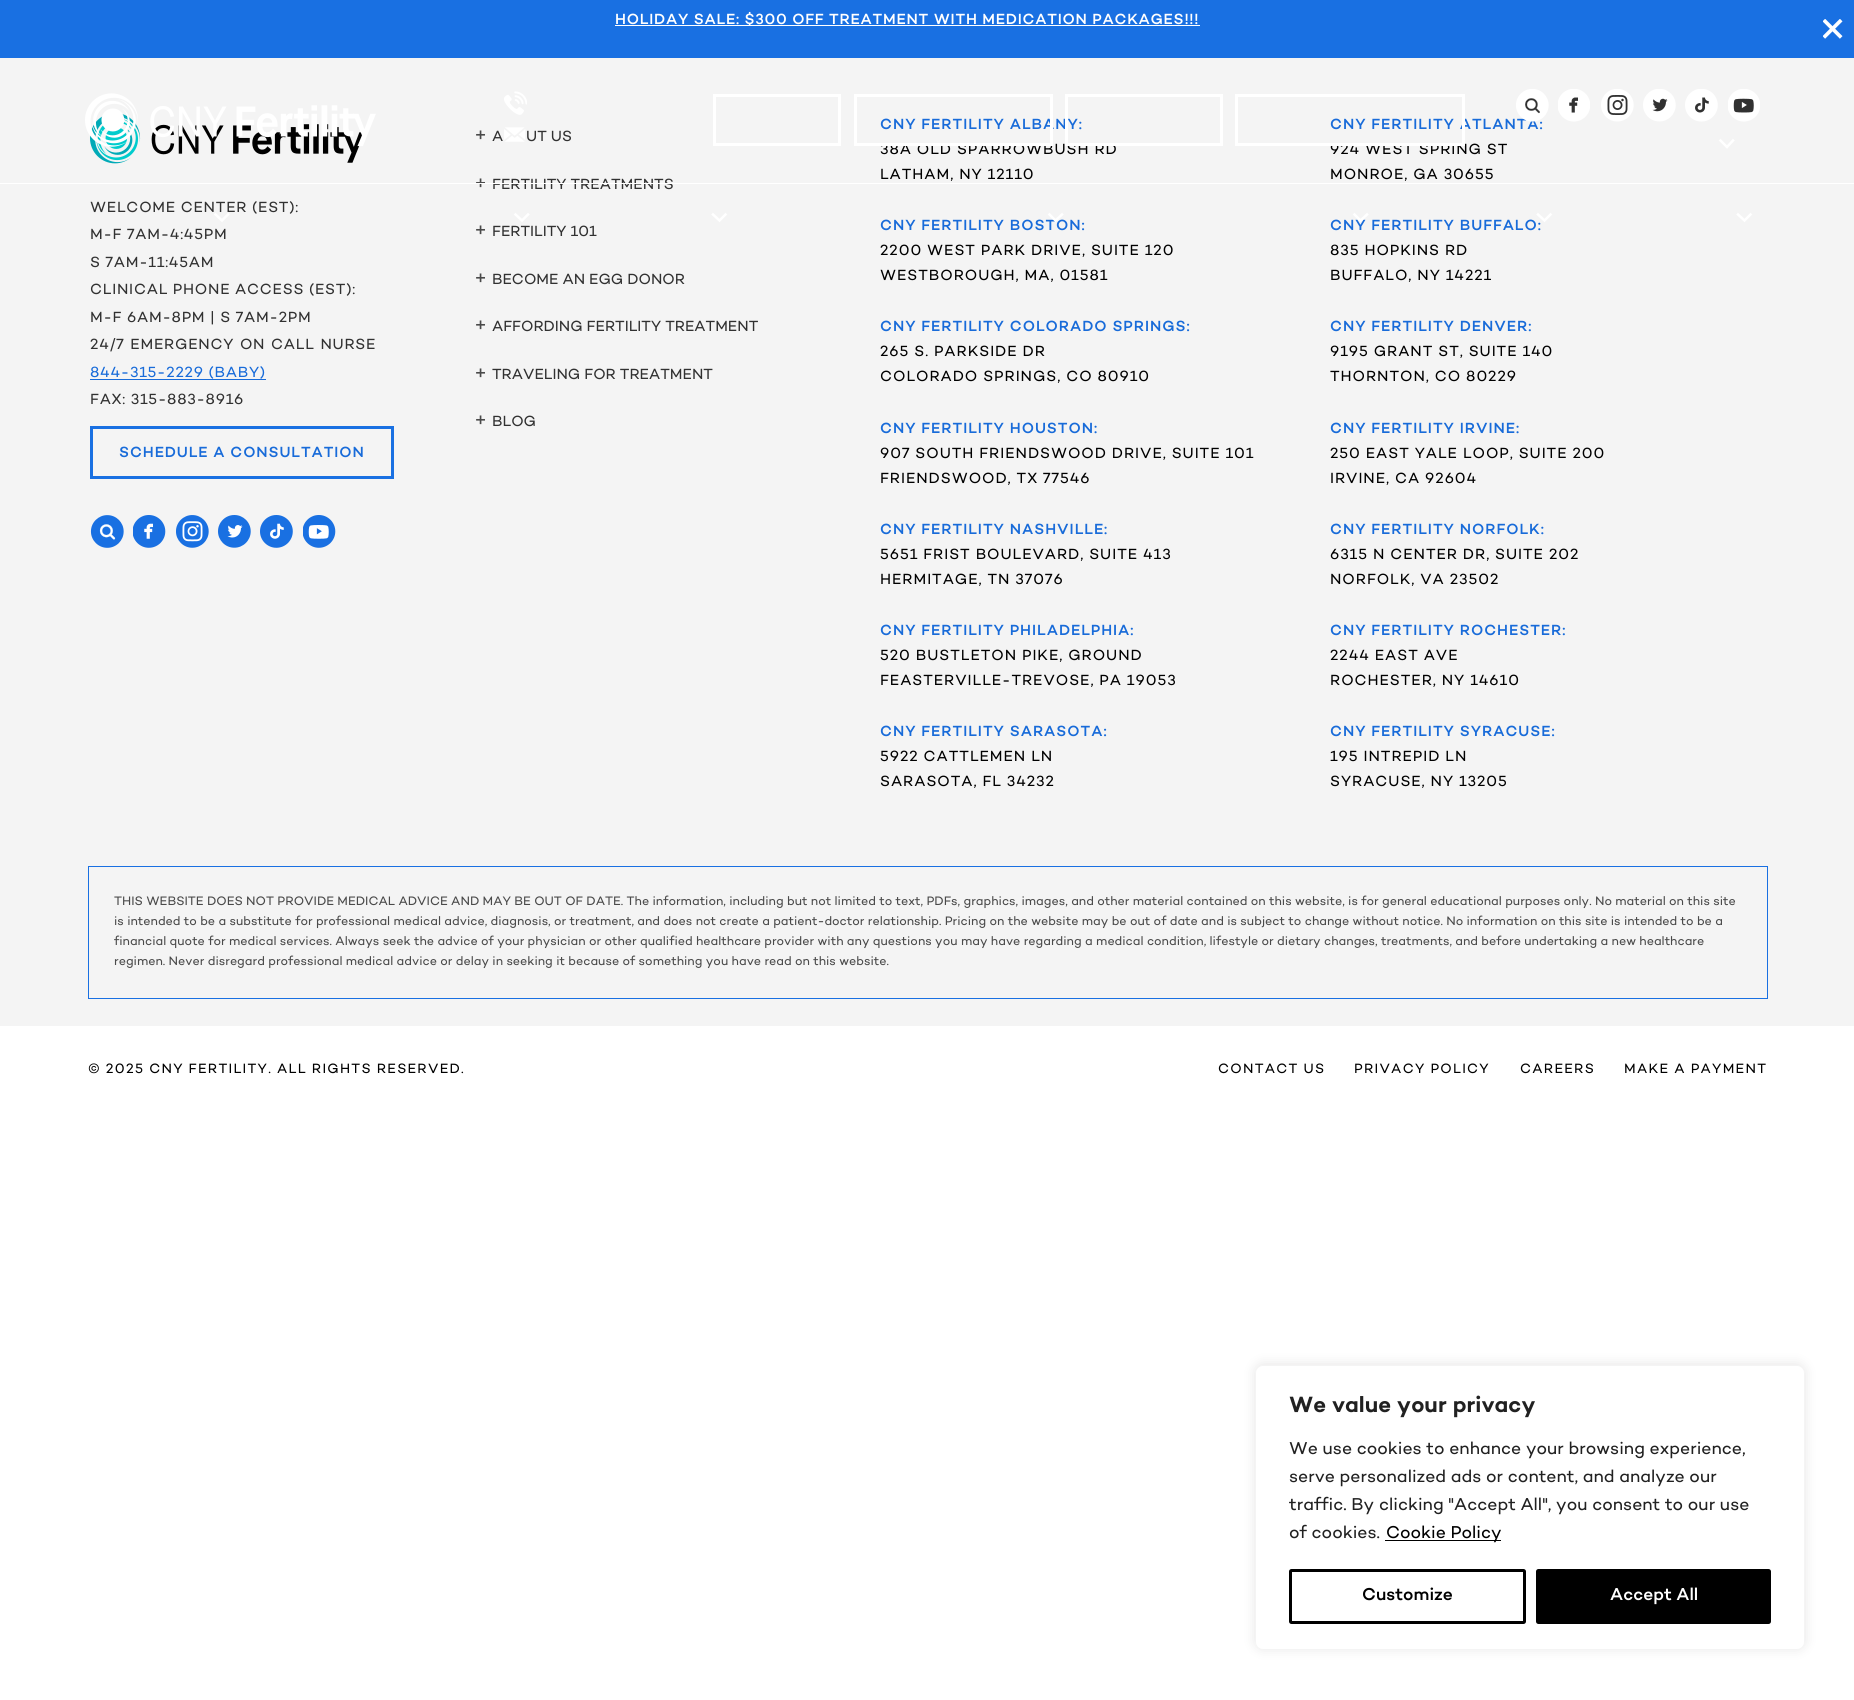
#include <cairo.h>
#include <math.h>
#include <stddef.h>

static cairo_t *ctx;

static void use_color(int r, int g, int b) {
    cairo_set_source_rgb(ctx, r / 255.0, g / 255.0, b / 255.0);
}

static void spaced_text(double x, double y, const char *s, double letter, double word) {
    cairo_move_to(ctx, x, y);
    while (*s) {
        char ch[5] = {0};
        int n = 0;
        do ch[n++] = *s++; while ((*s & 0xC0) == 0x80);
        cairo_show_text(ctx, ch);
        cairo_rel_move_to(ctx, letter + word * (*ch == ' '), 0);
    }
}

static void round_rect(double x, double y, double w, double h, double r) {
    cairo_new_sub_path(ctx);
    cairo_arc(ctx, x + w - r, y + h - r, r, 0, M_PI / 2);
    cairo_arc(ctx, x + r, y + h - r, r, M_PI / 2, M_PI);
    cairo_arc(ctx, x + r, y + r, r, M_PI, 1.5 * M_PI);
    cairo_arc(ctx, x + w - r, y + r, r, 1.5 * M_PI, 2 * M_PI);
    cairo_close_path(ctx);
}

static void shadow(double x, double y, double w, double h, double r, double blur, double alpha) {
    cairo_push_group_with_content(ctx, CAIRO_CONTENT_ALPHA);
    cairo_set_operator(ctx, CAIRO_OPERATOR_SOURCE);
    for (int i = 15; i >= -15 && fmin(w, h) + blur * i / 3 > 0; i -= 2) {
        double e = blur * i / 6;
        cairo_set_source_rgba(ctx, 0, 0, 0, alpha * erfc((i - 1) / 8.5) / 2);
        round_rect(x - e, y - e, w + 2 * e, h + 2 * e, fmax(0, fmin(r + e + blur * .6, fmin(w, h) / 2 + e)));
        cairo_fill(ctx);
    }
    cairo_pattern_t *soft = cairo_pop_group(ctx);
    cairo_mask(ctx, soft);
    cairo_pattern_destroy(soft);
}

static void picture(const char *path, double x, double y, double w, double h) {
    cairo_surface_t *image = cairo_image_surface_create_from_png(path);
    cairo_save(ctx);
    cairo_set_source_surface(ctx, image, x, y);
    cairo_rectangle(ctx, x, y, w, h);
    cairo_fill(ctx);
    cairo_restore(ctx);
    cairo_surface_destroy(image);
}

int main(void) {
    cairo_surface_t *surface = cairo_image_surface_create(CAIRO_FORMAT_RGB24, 1854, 1700);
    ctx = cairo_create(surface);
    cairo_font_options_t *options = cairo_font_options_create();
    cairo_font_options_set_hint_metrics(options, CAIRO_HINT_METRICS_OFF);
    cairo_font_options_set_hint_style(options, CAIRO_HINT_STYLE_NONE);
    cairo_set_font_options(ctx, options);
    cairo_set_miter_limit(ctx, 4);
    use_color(255, 255, 255);
    cairo_paint(ctx);
    use_color(25, 112, 226);
    cairo_rectangle(ctx, 0, 0, 1854, 58);
    cairo_fill(ctx);
    use_color(255, 255, 255);
    cairo_rectangle(ctx, 615, 25, 585, 1);
    cairo_fill(ctx);
    cairo_select_font_face(ctx, "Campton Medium", CAIRO_FONT_SLANT_NORMAL, CAIRO_FONT_WEIGHT_NORMAL);
    cairo_set_font_size(ctx, 15);
    spaced_text(615, 24, "HOLIDAY SALE: $300 OFF TREATMENT WITH MEDICATION PACKAGES!!!", 0.75, 0);
    picture("img1.png", 1823, 19, 20, 20);
    use_color(244, 244, 244);
    cairo_rectangle(ctx, 0, 58, 1854, 968);
    cairo_fill(ctx);
    picture("img11.png", 90, 114, 272, 50);
    picture("img2.png", 85, 93, 291, 54);
    picture("img3.png", 504, 91, 23, 24);
    picture("img4.png", 504, 127, 22, 15);
    cairo_rectangle(ctx, 714.5, 95.5, 125, 49);
    use_color(255, 255, 255);
    cairo_set_line_width(ctx, 3);
    cairo_stroke(ctx);
    use_color(24, 107, 217);
    spaced_text(880, 129, "CNY FERTILITY ALBANY:", 0.95, 0);
    cairo_select_font_face(ctx, "Campton", CAIRO_FONT_SLANT_NORMAL, CAIRO_FONT_WEIGHT_NORMAL);
    use_color(0, 0, 0);
    spaced_text(880, 154, "38A OLD SPARROWBUSH RD", 0.95, 0);
    cairo_rectangle(ctx, 855.5, 95.5, 196, 49);
    use_color(255, 255, 255);
    cairo_stroke(ctx);
    cairo_rectangle(ctx, 1066.5, 95.5, 155, 49);
    cairo_stroke(ctx);
    cairo_select_font_face(ctx, "Campton Medium", CAIRO_FONT_SLANT_NORMAL, CAIRO_FONT_WEIGHT_NORMAL);
    use_color(24, 107, 217);
    spaced_text(1330, 129, "CNY FERTILITY ATLANTA:", 0.95, 0);
    cairo_select_font_face(ctx, "Campton", CAIRO_FONT_SLANT_NORMAL, CAIRO_FONT_WEIGHT_NORMAL);
    use_color(0, 0, 0);
    spaced_text(1330, 154, "924 WEST SPRING ST", 0.95, 0);
    cairo_rectangle(ctx, 1236.5, 95.5, 227, 49);
    use_color(255, 255, 255);
    cairo_stroke(ctx);
    picture("img5.png", 1516, 89, 33, 33);
    picture("img6.png", 1558, 89, 32, 33);
    picture("img7.png", 1601, 89, 33, 33);
    picture("img8.png", 1643, 89, 33, 33);
    picture("img9.png", 1685, 89, 33, 33);
    picture("img10.png", 1728, 89, 32, 33);
    cairo_new_path(ctx);
    cairo_move_to(ctx, 1720.5, 140.5);
    cairo_line_to(ctx, 1727, 147);
    cairo_move_to(ctx, 1733, 140.5);
    cairo_line_to(ctx, 1727, 147);
    cairo_set_line_width(ctx, 2.5);
    cairo_set_line_cap(ctx, CAIRO_LINE_CAP_SQUARE);
    cairo_stroke(ctx);
    cairo_set_font_size(ctx, 19);
    use_color(74, 74, 74);
    cairo_move_to(ctx, 474, 189);
    cairo_show_text(ctx, "+");
    cairo_set_font_size(ctx, 15);
    use_color(49, 49, 49);
    cairo_move_to(ctx, 492, 189);
    cairo_show_text(ctx, "FERTILITY TREATMENTS");
    use_color(255, 255, 255);
    cairo_rectangle(ctx, 0, 183, 1854, 1);
    cairo_fill(ctx);
    use_color(49, 49, 49);
    spaced_text(90, 212, "WELCOME CENTER (EST):", 0.75, 0);
    cairo_new_path(ctx);
    cairo_move_to(ctx, 215.5, 214.5);
    cairo_line_to(ctx, 222, 220.5);
    cairo_move_to(ctx, 228, 214.5);
    cairo_line_to(ctx, 222, 220.5);
    use_color(255, 255, 255);
    cairo_stroke(ctx);
    cairo_new_path(ctx);
    cairo_move_to(ctx, 515.5, 214.5);
    cairo_line_to(ctx, 522, 220.5);
    cairo_move_to(ctx, 528, 214.5);
    cairo_line_to(ctx, 522, 220.5);
    cairo_stroke(ctx);
    cairo_new_path(ctx);
    cairo_move_to(ctx, 713, 214.5);
    cairo_line_to(ctx, 719.5, 220.5);
    cairo_move_to(ctx, 725.5, 214.5);
    cairo_line_to(ctx, 719.5, 220.5);
    cairo_stroke(ctx);
    cairo_select_font_face(ctx, "Campton Medium", CAIRO_FONT_SLANT_NORMAL, CAIRO_FONT_WEIGHT_NORMAL);
    use_color(24, 107, 217);
    spaced_text(880, 230, "CNY FERTILITY BOSTON:", 0.95, 0);
    cairo_new_path(ctx);
    cairo_move_to(ctx, 1049.5, 214.5);
    cairo_line_to(ctx, 1055.5, 220.5);
    cairo_move_to(ctx, 1062, 214.5);
    cairo_line_to(ctx, 1055.5, 220.5);
    use_color(255, 255, 255);
    cairo_stroke(ctx);
    use_color(24, 107, 217);
    spaced_text(1330, 230, "CNY FERTILITY BUFFALO:", 0.95, 0);
    cairo_new_path(ctx);
    cairo_move_to(ctx, 1354.5, 214.5);
    cairo_line_to(ctx, 1360.5, 220.5);
    cairo_move_to(ctx, 1367, 214.5);
    cairo_line_to(ctx, 1360.5, 220.5);
    use_color(255, 255, 255);
    cairo_stroke(ctx);
    cairo_new_path(ctx);
    cairo_move_to(ctx, 1538, 214.5);
    cairo_line_to(ctx, 1544.5, 220.5);
    cairo_move_to(ctx, 1550.5, 214.5);
    cairo_line_to(ctx, 1544.5, 220.5);
    cairo_stroke(ctx);
    cairo_new_path(ctx);
    cairo_move_to(ctx, 1738, 214.5);
    cairo_line_to(ctx, 1744.5, 220.5);
    cairo_move_to(ctx, 1750.5, 214.5);
    cairo_line_to(ctx, 1744.5, 220.5);
    cairo_stroke(ctx);
    cairo_select_font_face(ctx, "Campton", CAIRO_FONT_SLANT_NORMAL, CAIRO_FONT_WEIGHT_NORMAL);
    use_color(49, 49, 49);
    spaced_text(90, 239, "M-F 7AM-4:45PM", 0.75, 0);
    spaced_text(90, 267, "S 7AM-11:45AM", 0.75, 0);
    spaced_text(90, 294, "CLINICAL PHONE ACCESS (EST):", 0.75, 0);
    spaced_text(90, 322, "M-F 6AM-8PM | S 7AM-2PM", 0.75, 0);
    spaced_text(90, 349, "24/7 EMERGENCY ON CALL NURSE", 0.75, 1);
    use_color(24, 107, 217);
    spaced_text(90, 377, "844-315-2229 (BABY)", 0.75, 0);
    cairo_rectangle(ctx, 90, 379, 176, 1);
    cairo_fill(ctx);
    use_color(49, 49, 49);
    spaced_text(90, 404, "FAX: 315-883-8916", 0.75, 0);
    cairo_rectangle(ctx, 91.5, 427.5, 301, 50);
    use_color(25, 112, 226);
    cairo_set_line_width(ctx, 3);
    cairo_set_line_cap(ctx, CAIRO_LINE_CAP_BUTT);
    cairo_stroke(ctx);
    cairo_select_font_face(ctx, "Campton Medium", CAIRO_FONT_SLANT_NORMAL, CAIRO_FONT_WEIGHT_NORMAL);
    use_color(24, 107, 217);
    spaced_text(119, 457, "SCHEDULE A CONSULTATION", 0.9, 0);
    picture("img12.png", 90, 515, 34, 33);
    picture("img13.png", 133, 515, 33, 33);
    picture("img14.png", 176, 515, 33, 33);
    picture("img15.png", 218, 515, 33, 33);
    picture("img16.png", 260, 515, 33, 33);
    picture("img17.png", 303, 515, 33, 33);
    cairo_select_font_face(ctx, "Campton", CAIRO_FONT_SLANT_NORMAL, CAIRO_FONT_WEIGHT_NORMAL);
    cairo_set_font_size(ctx, 19);
    use_color(74, 74, 74);
    cairo_move_to(ctx, 474, 141);
    cairo_show_text(ctx, "+");
    cairo_set_font_size(ctx, 15);
    use_color(49, 49, 49);
    cairo_move_to(ctx, 492, 141);
    cairo_show_text(ctx, "A");
    cairo_move_to(ctx, 526, 141);
    cairo_show_text(ctx, "UT US");
    cairo_set_font_size(ctx, 19);
    use_color(74, 74, 74);
    cairo_move_to(ctx, 474, 236);
    cairo_show_text(ctx, "+");
    cairo_set_font_size(ctx, 15);
    use_color(49, 49, 49);
    cairo_move_to(ctx, 492, 236);
    cairo_show_text(ctx, "FERTILITY 101");
    cairo_set_font_size(ctx, 19);
    use_color(74, 74, 74);
    cairo_move_to(ctx, 474, 284);
    cairo_show_text(ctx, "+");
    cairo_set_font_size(ctx, 15);
    use_color(49, 49, 49);
    cairo_move_to(ctx, 492, 284);
    cairo_show_text(ctx, "BECOME AN EGG DONOR");
    cairo_set_font_size(ctx, 19);
    use_color(74, 74, 74);
    cairo_move_to(ctx, 474, 331);
    cairo_show_text(ctx, "+");
    cairo_set_font_size(ctx, 15);
    use_color(49, 49, 49);
    cairo_move_to(ctx, 492, 331);
    cairo_show_text(ctx, "AFFORDING FERTILITY TREATMENT");
    cairo_set_font_size(ctx, 19);
    use_color(74, 74, 74);
    cairo_move_to(ctx, 474, 379);
    cairo_show_text(ctx, "+");
    cairo_set_font_size(ctx, 15);
    use_color(49, 49, 49);
    cairo_move_to(ctx, 492, 379);
    cairo_show_text(ctx, "TRAVELING FOR TREATMENT");
    cairo_set_font_size(ctx, 19);
    use_color(74, 74, 74);
    cairo_move_to(ctx, 474, 426);
    cairo_show_text(ctx, "+");
    cairo_set_font_size(ctx, 15);
    use_color(49, 49, 49);
    cairo_move_to(ctx, 492, 426);
    cairo_show_text(ctx, "BLOG");
    use_color(0, 0, 0);
    spaced_text(880, 179, "LATHAM, NY 12110", 0.95, 0);
    spaced_text(1330, 179, "MONROE, GA 30655", 0.95, 0);
    spaced_text(880, 255, "2200 WEST PARK DRIVE, SUITE 120", 0.95, 0);
    spaced_text(880, 280, "WESTBOROUGH, MA, 01581", 0.95, 0);
    spaced_text(1330, 255, "835 HOPKINS RD", 0.95, 0);
    spaced_text(1330, 280, "BUFFALO, NY 14221", 0.95, 0);
    cairo_select_font_face(ctx, "Campton Medium", CAIRO_FONT_SLANT_NORMAL, CAIRO_FONT_WEIGHT_NORMAL);
    use_color(24, 107, 217);
    spaced_text(880, 331, "CNY FERTILITY COLORADO SPRINGS:", 0.95, 0);
    cairo_select_font_face(ctx, "Campton", CAIRO_FONT_SLANT_NORMAL, CAIRO_FONT_WEIGHT_NORMAL);
    use_color(0, 0, 0);
    spaced_text(880, 356, "265 S. PARKSIDE DR", 0.95, 0);
    spaced_text(880, 381, "COLORADO SPRINGS, CO 80910", 0.95, 0);
    cairo_select_font_face(ctx, "Campton Medium", CAIRO_FONT_SLANT_NORMAL, CAIRO_FONT_WEIGHT_NORMAL);
    use_color(24, 107, 217);
    spaced_text(1330, 331, "CNY FERTILITY DENVER:", 0.95, 0);
    cairo_select_font_face(ctx, "Campton", CAIRO_FONT_SLANT_NORMAL, CAIRO_FONT_WEIGHT_NORMAL);
    use_color(0, 0, 0);
    spaced_text(1330, 356, "9195 GRANT ST, SUITE 140", 0.95, 0);
    spaced_text(1330, 381, "THORNTON, CO 80229", 0.95, 0);
    cairo_select_font_face(ctx, "Campton Medium", CAIRO_FONT_SLANT_NORMAL, CAIRO_FONT_WEIGHT_NORMAL);
    use_color(24, 107, 217);
    spaced_text(880, 433, "CNY FERTILITY HOUSTON:", 0.95, 0);
    cairo_select_font_face(ctx, "Campton", CAIRO_FONT_SLANT_NORMAL, CAIRO_FONT_WEIGHT_NORMAL);
    use_color(0, 0, 0);
    spaced_text(880, 458, "907 SOUTH FRIENDSWOOD DRIVE, SUITE 101", 0.95, 0);
    spaced_text(880, 483, "FRIENDSWOOD, TX 77546", 0.95, 0);
    cairo_select_font_face(ctx, "Campton Medium", CAIRO_FONT_SLANT_NORMAL, CAIRO_FONT_WEIGHT_NORMAL);
    use_color(24, 107, 217);
    spaced_text(1330, 433, "CNY FERTILITY IRVINE:", 0.95, 0);
    cairo_select_font_face(ctx, "Campton", CAIRO_FONT_SLANT_NORMAL, CAIRO_FONT_WEIGHT_NORMAL);
    use_color(0, 0, 0);
    spaced_text(1330, 458, "250 EAST YALE LOOP, SUITE 200", 0.95, 0);
    spaced_text(1330, 483, "IRVINE, CA 92604", 0.95, 0);
    cairo_select_font_face(ctx, "Campton Medium", CAIRO_FONT_SLANT_NORMAL, CAIRO_FONT_WEIGHT_NORMAL);
    use_color(24, 107, 217);
    spaced_text(880, 534, "CNY FERTILITY NASHVILLE:", 0.95, 0);
    cairo_select_font_face(ctx, "Campton", CAIRO_FONT_SLANT_NORMAL, CAIRO_FONT_WEIGHT_NORMAL);
    use_color(0, 0, 0);
    spaced_text(880, 559, "5651 FRIST BOULEVARD, SUITE 413", 0.95, 0);
    spaced_text(880, 584, "HERMITAGE, TN 37076", 0.95, 0);
    cairo_select_font_face(ctx, "Campton Medium", CAIRO_FONT_SLANT_NORMAL, CAIRO_FONT_WEIGHT_NORMAL);
    use_color(24, 107, 217);
    spaced_text(1330, 534, "CNY FERTILITY NORFOLK:", 0.95, 0);
    cairo_select_font_face(ctx, "Campton", CAIRO_FONT_SLANT_NORMAL, CAIRO_FONT_WEIGHT_NORMAL);
    use_color(0, 0, 0);
    spaced_text(1330, 559, "6315 N CENTER DR, SUITE 202", 0.95, 0);
    spaced_text(1330, 584, "NORFOLK, VA 23502", 0.95, 0);
    cairo_select_font_face(ctx, "Campton Medium", CAIRO_FONT_SLANT_NORMAL, CAIRO_FONT_WEIGHT_NORMAL);
    use_color(24, 107, 217);
    spaced_text(880, 635, "CNY FERTILITY PHILADELPHIA:", 0.95, 0);
    cairo_select_font_face(ctx, "Campton", CAIRO_FONT_SLANT_NORMAL, CAIRO_FONT_WEIGHT_NORMAL);
    use_color(0, 0, 0);
    spaced_text(880, 660, "520 BUSTLETON PIKE, GROUND", 0.95, 0);
    spaced_text(880, 685, "FEASTERVILLE-TREVOSE, PA 19053", 0.95, 0);
    cairo_select_font_face(ctx, "Campton Medium", CAIRO_FONT_SLANT_NORMAL, CAIRO_FONT_WEIGHT_NORMAL);
    use_color(24, 107, 217);
    spaced_text(1330, 635, "CNY FERTILITY ROCHESTER:", 0.95, 0);
    cairo_select_font_face(ctx, "Campton", CAIRO_FONT_SLANT_NORMAL, CAIRO_FONT_WEIGHT_NORMAL);
    use_color(0, 0, 0);
    spaced_text(1330, 660, "2244 EAST AVE", 0.95, 0);
    spaced_text(1330, 685, "ROCHESTER, NY 14610", 0.95, 0);
    cairo_select_font_face(ctx, "Campton Medium", CAIRO_FONT_SLANT_NORMAL, CAIRO_FONT_WEIGHT_NORMAL);
    use_color(24, 107, 217);
    spaced_text(880, 736, "CNY FERTILITY SARASOTA:", 0.95, 0);
    cairo_select_font_face(ctx, "Campton", CAIRO_FONT_SLANT_NORMAL, CAIRO_FONT_WEIGHT_NORMAL);
    use_color(0, 0, 0);
    spaced_text(880, 761, "5922 CATTLEMEN LN", 0.95, 0);
    spaced_text(880, 786, "SARASOTA, FL 34232", 0.95, 0);
    cairo_select_font_face(ctx, "Campton Medium", CAIRO_FONT_SLANT_NORMAL, CAIRO_FONT_WEIGHT_NORMAL);
    use_color(24, 107, 217);
    spaced_text(1330, 736, "CNY FERTILITY SYRACUSE:", 0.95, 0);
    cairo_select_font_face(ctx, "Campton", CAIRO_FONT_SLANT_NORMAL, CAIRO_FONT_WEIGHT_NORMAL);
    use_color(0, 0, 0);
    spaced_text(1330, 761, "195 INTREPID LN", 0.95, 0);
    spaced_text(1330, 786, "SYRACUSE, NY 13205", 0.95, 0);
    cairo_rectangle(ctx, 88.5, 866.5, 1679, 132);
    use_color(25, 112, 226);
    cairo_set_line_width(ctx, 1);
    cairo_stroke(ctx);
    cairo_set_font_size(ctx, 12.5);
    use_color(74, 74, 74);
    cairo_move_to(ctx, 114, 905);
    cairo_show_text(ctx, "THIS WEBSITE DOES NOT PROVIDE MEDICAL ADVICE AND MAY BE OUT OF DATE. The information, including but not limited to text, PDFs, graphics, images, and other material contained on this website, is for general educational purposes only. No material on this site");
    cairo_move_to(ctx, 114, 925);
    cairo_show_text(ctx, "is intended to be a substitute for professional medical advice, diagnosis, or treatment, and does not create a patient-doctor relationship. Pricing on the website may be out of date and is subject to change without notice. No information on this site is intended to be a");
    cairo_move_to(ctx, 114, 945);
    cairo_show_text(ctx, "financial quote for medical services. Always seek the advice of your physician or other qualified healthcare provider with any questions you may have regarding a medical condition, lifestyle or dietary changes, treatments, and before undertaking a new healthcare");
    cairo_move_to(ctx, 114, 965);
    cairo_show_text(ctx, "regimen. Never disregard professional medical advice or delay in seeking it because of something you have read on this website.");
    cairo_set_font_size(ctx, 13.75);
    use_color(0, 0, 0);
    spaced_text(88, 1073, "© 2025 CNY FERTILITY. ALL RIGHTS RESERVED.", 1.25, 0);
    spaced_text(1218, 1073, "CONTACT US", 1.25, 0);
    spaced_text(1354, 1073, "PRIVACY POLICY", 1.25, 0);
    spaced_text(1520, 1073, "CAREERS", 1.25, 0);
    spaced_text(1624, 1073, "MAKE A PAYMENT", 1.25, 0);
    use_color(172, 171, 171);
    shadow(1255, 1364, 550, 285, 8, 6, 0.3);
    use_color(255, 255, 255);
    round_rect(1255.5, 1365.5, 549, 284, 7.5);
    cairo_fill_preserve(ctx);
    use_color(244, 244, 244);
    cairo_stroke(ctx);
    cairo_select_font_face(ctx, "Campton SemiBold", CAIRO_FONT_SLANT_NORMAL, CAIRO_FONT_WEIGHT_NORMAL);
    cairo_set_font_size(ctx, 22.5);
    use_color(33, 33, 33);
    cairo_move_to(ctx, 1289, 1412);
    cairo_show_text(ctx, "We value your privacy");
    cairo_select_font_face(ctx, "Campton", CAIRO_FONT_SLANT_NORMAL, CAIRO_FONT_WEIGHT_NORMAL);
    cairo_set_font_size(ctx, 17.5);
    cairo_move_to(ctx, 1289, 1454);
    cairo_show_text(ctx, "We use cookies to enhance your browsing experience,");
    cairo_move_to(ctx, 1289, 1482);
    cairo_show_text(ctx, "serve personalized ads or content, and analyze our");
    cairo_move_to(ctx, 1289, 1510);
    cairo_show_text(ctx, "traffic. By clicking \"Accept All\", you consent to our use");
    cairo_move_to(ctx, 1289, 1538);
    cairo_show_text(ctx, "of cookies.");
    use_color(0, 0, 0);
    cairo_rectangle(ctx, 1385, 1540, 116, 1);
    cairo_fill(ctx);
    cairo_move_to(ctx, 1386, 1538);
    cairo_show_text(ctx, "Cookie Policy");
    round_rect(1290.5, 1570.5, 234, 52, 1);
    cairo_set_line_width(ctx, 3);
    cairo_stroke(ctx);
    cairo_select_font_face(ctx, "Campton Medium", CAIRO_FONT_SLANT_NORMAL, CAIRO_FONT_WEIGHT_NORMAL);
    cairo_move_to(ctx, 1362, 1600);
    cairo_show_text(ctx, "Customize");
    round_rect(1537.5, 1570.5, 232, 52, 1);
    cairo_fill_preserve(ctx);
    cairo_stroke(ctx);
    use_color(255, 255, 255);
    cairo_move_to(ctx, 1610, 1600);
    cairo_show_text(ctx, "Accept All");
    cairo_surface_write_to_png(surface, "result.png");
    cairo_font_options_destroy(options);
    cairo_destroy(ctx);
    cairo_surface_destroy(surface);
    return 0;
}
